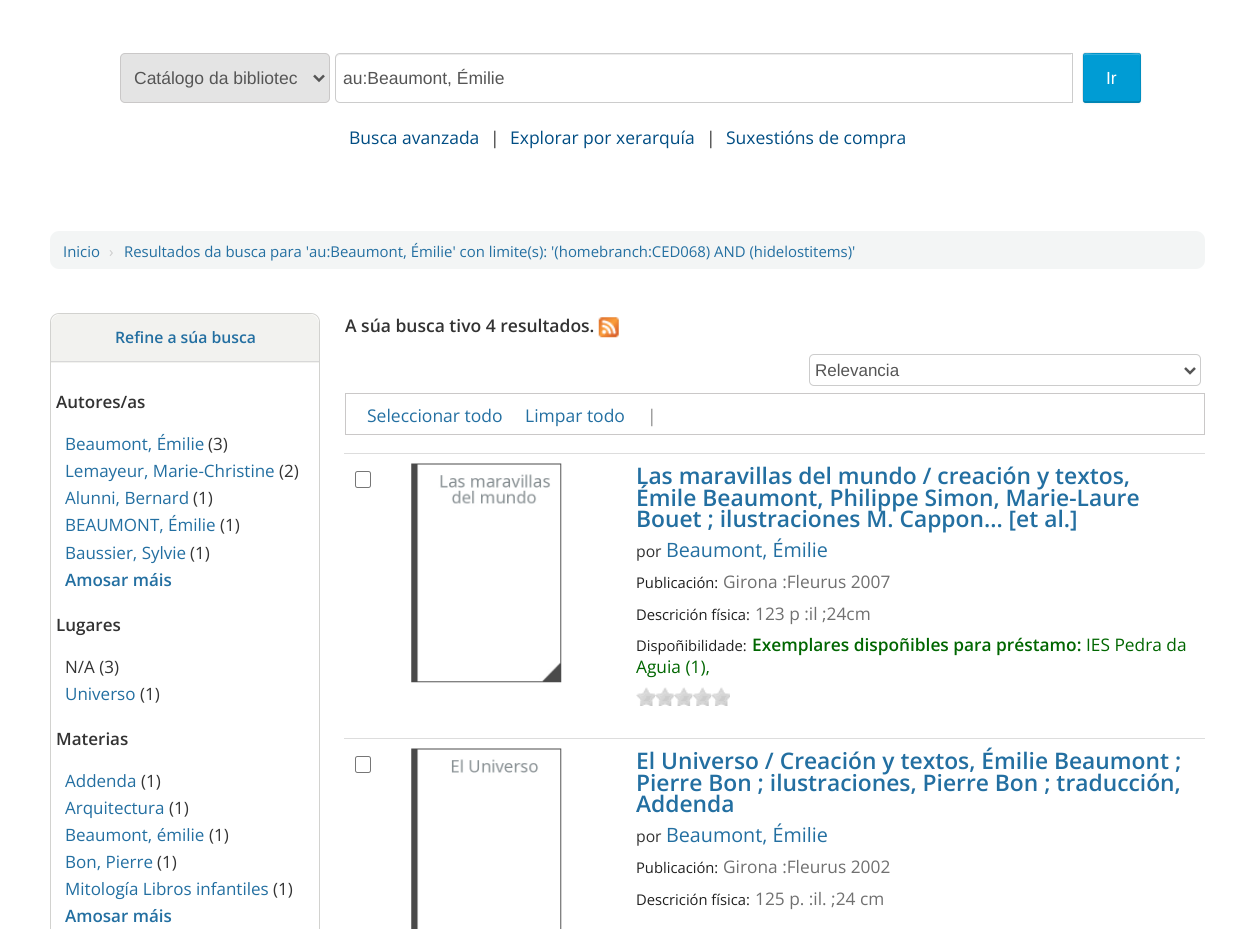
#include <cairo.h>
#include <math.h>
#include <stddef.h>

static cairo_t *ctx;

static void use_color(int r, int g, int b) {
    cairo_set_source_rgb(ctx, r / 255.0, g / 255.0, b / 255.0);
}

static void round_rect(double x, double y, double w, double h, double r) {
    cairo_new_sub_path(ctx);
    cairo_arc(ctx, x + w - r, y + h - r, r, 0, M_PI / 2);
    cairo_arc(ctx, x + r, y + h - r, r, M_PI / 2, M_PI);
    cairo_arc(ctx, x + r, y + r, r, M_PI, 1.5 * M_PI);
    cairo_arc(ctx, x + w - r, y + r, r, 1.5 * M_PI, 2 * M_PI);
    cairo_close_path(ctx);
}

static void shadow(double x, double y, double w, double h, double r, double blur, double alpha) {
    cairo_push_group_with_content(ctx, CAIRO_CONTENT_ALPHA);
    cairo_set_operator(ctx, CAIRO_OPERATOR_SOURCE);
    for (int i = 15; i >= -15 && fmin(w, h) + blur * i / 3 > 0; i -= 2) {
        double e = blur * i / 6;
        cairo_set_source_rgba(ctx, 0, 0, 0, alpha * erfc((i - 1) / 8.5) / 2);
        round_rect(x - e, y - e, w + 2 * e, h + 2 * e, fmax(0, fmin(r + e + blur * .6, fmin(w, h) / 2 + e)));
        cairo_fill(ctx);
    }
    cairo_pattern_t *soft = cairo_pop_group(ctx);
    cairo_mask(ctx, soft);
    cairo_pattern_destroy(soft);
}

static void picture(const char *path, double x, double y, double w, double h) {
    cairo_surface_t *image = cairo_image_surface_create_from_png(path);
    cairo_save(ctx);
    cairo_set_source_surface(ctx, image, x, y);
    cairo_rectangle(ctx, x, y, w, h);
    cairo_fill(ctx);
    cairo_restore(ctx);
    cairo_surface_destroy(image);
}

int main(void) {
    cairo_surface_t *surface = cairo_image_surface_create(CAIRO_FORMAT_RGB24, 1254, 929);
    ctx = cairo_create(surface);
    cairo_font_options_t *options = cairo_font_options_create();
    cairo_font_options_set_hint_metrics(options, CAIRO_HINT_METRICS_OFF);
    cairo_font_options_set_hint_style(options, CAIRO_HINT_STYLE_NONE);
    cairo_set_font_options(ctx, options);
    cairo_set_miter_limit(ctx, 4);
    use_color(255, 255, 255);
    cairo_paint(ctx);
    use_color(228, 228, 228);
    round_rect(120.5, 53.5, 209, 49, 4.5);
    cairo_fill_preserve(ctx);
    use_color(202, 200, 200);
    cairo_set_line_width(ctx, 1);
    cairo_stroke(ctx);
    cairo_new_path(ctx);
    cairo_move_to(ctx, 314, 75.5);
    cairo_line_to(ctx, 319, 80.5);
    cairo_line_to(ctx, 324, 75.5);
    use_color(85, 85, 85);
    cairo_set_line_width(ctx, 2.5);
    cairo_stroke(ctx);
    cairo_select_font_face(ctx, "Liberation Sans", CAIRO_FONT_SLANT_NORMAL, CAIRO_FONT_WEIGHT_NORMAL);
    cairo_set_font_size(ctx, 17.5);
    cairo_move_to(ctx, 134, 84);
    cairo_show_text(ctx, "Catálogo da bibliotec");
    use_color(236, 236, 236);
    cairo_new_path(ctx);
    cairo_move_to(ctx, 340, 55);
    cairo_line_to(ctx, 1071, 55);
    cairo_line_to(ctx, 1071, 54);
    cairo_line_to(ctx, 340, 54);
    cairo_curve_to(ctx, 338, 54, 336, 56, 336, 58);
    cairo_line_to(ctx, 336, 59);
    cairo_curve_to(ctx, 336, 57, 338, 55, 340, 55);
    cairo_close_path(ctx);
    cairo_fill(ctx);
    cairo_new_path(ctx);
    cairo_move_to(ctx, 340, 53.5);
    cairo_line_to(ctx, 1072.5, 53.5);
    cairo_line_to(ctx, 1072.5, 102.5);
    cairo_line_to(ctx, 340, 102.5);
    cairo_curve_to(ctx, 337.5, 102.5, 335.5, 100.5, 335.5, 98);
    cairo_line_to(ctx, 335.5, 58);
    cairo_curve_to(ctx, 335.5, 55.5, 337.5, 53.5, 340, 53.5);
    cairo_close_path(ctx);
    use_color(204, 204, 204);
    cairo_set_line_width(ctx, 1);
    cairo_stroke(ctx);
    use_color(85, 85, 85);
    cairo_move_to(ctx, 343, 84);
    cairo_show_text(ctx, "au:Beaumont, Émilie");
    use_color(0, 0, 0);
    shadow(1083, 54, 58, 50, 2.5, 1, 0.05);
    use_color(0, 156, 212);
    round_rect(1083, 53, 58, 50, 2.5);
    cairo_fill(ctx);
    cairo_set_source_rgba(ctx, 1, 1, 1, 0.2);
    cairo_new_path(ctx);
    cairo_move_to(ctx, 1085, 55);
    cairo_line_to(ctx, 1139, 55);
    cairo_line_to(ctx, 1140, 56);
    cairo_curve_to(ctx, 1140, 51, 1134, 54, 1130, 54);
    cairo_line_to(ctx, 1094, 54);
    cairo_curve_to(ctx, 1090, 54, 1084, 51, 1084, 56);
    cairo_close_path(ctx);
    cairo_fill(ctx);
    cairo_new_path(ctx);
    cairo_move_to(ctx, 1140, 101.5);
    cairo_line_to(ctx, 1139, 102);
    cairo_line_to(ctx, 1085, 102);
    cairo_line_to(ctx, 1083.5, 101.5);
    cairo_set_source_rgba(ctx, 0, 0, 0, 0.25);
    cairo_set_line_width(ctx, 1.2);
    cairo_stroke(ctx);
    cairo_new_path(ctx);
    cairo_move_to(ctx, 1083.5, 101.5);
    cairo_curve_to(ctx, 1082, 100, 1083, 80.5, 1083, 77.5);
    cairo_line_to(ctx, 1083, 62.5);
    cairo_curve_to(ctx, 1083, 51, 1081.5, 53, 1094, 53);
    cairo_line_to(ctx, 1130, 53);
    cairo_curve_to(ctx, 1142, 53, 1140.5, 51, 1140.5, 62.5);
    cairo_line_to(ctx, 1140.5, 77.5);
    cairo_curve_to(ctx, 1140.5, 80.5, 1141.5, 100, 1140, 101.5);
    cairo_set_source_rgba(ctx, 0, 0, 0, 0.1);
    cairo_stroke(ctx);
    use_color(255, 255, 255);
    cairo_move_to(ctx, 1106, 84);
    cairo_show_text(ctx, "Ir");
    cairo_select_font_face(ctx, "Open Sans", CAIRO_FONT_SLANT_NORMAL, CAIRO_FONT_WEIGHT_NORMAL);
    use_color(0, 77, 131);
    cairo_move_to(ctx, 349, 144);
    cairo_show_text(ctx, "Busca avanzada");
    use_color(51, 51, 51);
    cairo_move_to(ctx, 490, 144);
    cairo_show_text(ctx, "|");
    use_color(0, 77, 131);
    cairo_move_to(ctx, 510, 144);
    cairo_show_text(ctx, "Explorar por xerarquía");
    use_color(51, 51, 51);
    cairo_move_to(ctx, 706, 144);
    cairo_show_text(ctx, "|");
    use_color(0, 77, 131);
    cairo_move_to(ctx, 726, 144);
    cairo_show_text(ctx, "Suxestións de compra");
    use_color(243, 245, 245);
    round_rect(50, 231, 1155, 38, 9);
    cairo_fill(ctx);
    cairo_set_font_size(ctx, 14.9);
    use_color(35, 111, 161);
    cairo_move_to(ctx, 63, 257);
    cairo_show_text(ctx, "Inicio");
    use_color(204, 204, 204);
    cairo_move_to(ctx, 109, 257);
    cairo_show_text(ctx, "›");
    use_color(35, 111, 161);
    cairo_move_to(ctx, 124, 257);
    cairo_show_text(ctx, "Resultados da busca para 'au:Beaumont, Émilie' con limite(s): '(homebranch:CED068) AND (hidelostitems)'");
    round_rect(50.5, 313.5, 269, 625, 8.5);
    use_color(210, 210, 207);
    cairo_set_line_width(ctx, 1);
    cairo_stroke(ctx);
    use_color(242, 242, 239);
    cairo_new_path(ctx);
    cairo_move_to(ctx, 61, 314);
    cairo_line_to(ctx, 309, 314);
    cairo_curve_to(ctx, 314.5, 314, 319, 318.5, 319, 324);
    cairo_line_to(ctx, 319, 363);
    cairo_line_to(ctx, 51, 363);
    cairo_line_to(ctx, 51, 324);
    cairo_curve_to(ctx, 51, 318.5, 55.5, 314, 61, 314);
    cairo_close_path(ctx);
    cairo_fill(ctx);
    use_color(216, 216, 216);
    cairo_rectangle(ctx, 51, 361, 268, 1);
    cairo_fill(ctx);
    cairo_select_font_face(ctx, "Open Sans SemiBold", CAIRO_FONT_SLANT_NORMAL, CAIRO_FONT_WEIGHT_NORMAL);
    cairo_set_font_size(ctx, 15.75);
    use_color(35, 111, 161);
    cairo_move_to(ctx, 115, 343);
    cairo_show_text(ctx, "Refine a súa busca");
    cairo_set_font_size(ctx, 17);
    use_color(51, 51, 51);
    cairo_move_to(ctx, 56, 408);
    cairo_show_text(ctx, "Autores/as");
    cairo_select_font_face(ctx, "Open Sans", CAIRO_FONT_SLANT_NORMAL, CAIRO_FONT_WEIGHT_NORMAL);
    use_color(35, 111, 161);
    cairo_move_to(ctx, 65, 450);
    cairo_show_text(ctx, "Beaumont, Émilie");
    use_color(51, 51, 51);
    cairo_move_to(ctx, 208, 450);
    cairo_show_text(ctx, "(3)");
    use_color(35, 111, 161);
    cairo_move_to(ctx, 65, 477);
    cairo_show_text(ctx, "Lemayeur, Marie-Christine");
    use_color(51, 51, 51);
    cairo_move_to(ctx, 279, 477);
    cairo_show_text(ctx, "(2)");
    use_color(35, 111, 161);
    cairo_move_to(ctx, 65, 504);
    cairo_show_text(ctx, "Alunni, Bernard");
    use_color(51, 51, 51);
    cairo_move_to(ctx, 193, 504);
    cairo_show_text(ctx, "(1)");
    use_color(35, 111, 161);
    cairo_move_to(ctx, 65, 531);
    cairo_show_text(ctx, "BEAUMONT, Émilie");
    use_color(51, 51, 51);
    cairo_move_to(ctx, 220, 531);
    cairo_show_text(ctx, "(1)");
    use_color(35, 111, 161);
    cairo_move_to(ctx, 65, 559);
    cairo_show_text(ctx, "Baussier, Sylvie");
    use_color(51, 51, 51);
    cairo_move_to(ctx, 190, 559);
    cairo_show_text(ctx, "(1)");
    cairo_select_font_face(ctx, "Open Sans SemiBold", CAIRO_FONT_SLANT_NORMAL, CAIRO_FONT_WEIGHT_NORMAL);
    use_color(35, 111, 161);
    cairo_move_to(ctx, 65, 586);
    cairo_show_text(ctx, "Amosar máis");
    use_color(51, 51, 51);
    cairo_move_to(ctx, 56, 631);
    cairo_show_text(ctx, "Lugares");
    cairo_select_font_face(ctx, "Open Sans", CAIRO_FONT_SLANT_NORMAL, CAIRO_FONT_WEIGHT_NORMAL);
    cairo_move_to(ctx, 65, 673);
    cairo_show_text(ctx, "N/A (3)");
    use_color(35, 111, 161);
    cairo_move_to(ctx, 65, 700);
    cairo_show_text(ctx, "Universo");
    use_color(51, 51, 51);
    cairo_move_to(ctx, 140, 700);
    cairo_show_text(ctx, "(1)");
    cairo_select_font_face(ctx, "Open Sans SemiBold", CAIRO_FONT_SLANT_NORMAL, CAIRO_FONT_WEIGHT_NORMAL);
    cairo_move_to(ctx, 56, 745);
    cairo_show_text(ctx, "Materias");
    cairo_select_font_face(ctx, "Open Sans", CAIRO_FONT_SLANT_NORMAL, CAIRO_FONT_WEIGHT_NORMAL);
    use_color(35, 111, 161);
    cairo_move_to(ctx, 65, 787);
    cairo_show_text(ctx, "Addenda");
    use_color(51, 51, 51);
    cairo_move_to(ctx, 141, 787);
    cairo_show_text(ctx, "(1)");
    use_color(35, 111, 161);
    cairo_move_to(ctx, 65, 814);
    cairo_show_text(ctx, "Arquitectura");
    use_color(51, 51, 51);
    cairo_move_to(ctx, 169, 814);
    cairo_show_text(ctx, "(1)");
    use_color(35, 111, 161);
    cairo_move_to(ctx, 65, 841);
    cairo_show_text(ctx, "Beaumont, émilie");
    use_color(51, 51, 51);
    cairo_move_to(ctx, 209, 841);
    cairo_show_text(ctx, "(1)");
    use_color(35, 111, 161);
    cairo_move_to(ctx, 65, 868);
    cairo_show_text(ctx, "Bon, Pierre");
    use_color(51, 51, 51);
    cairo_move_to(ctx, 157, 868);
    cairo_show_text(ctx, "(1)");
    use_color(35, 111, 161);
    cairo_move_to(ctx, 65, 895);
    cairo_show_text(ctx, "Mitología Libros infantiles");
    use_color(51, 51, 51);
    cairo_move_to(ctx, 273, 895);
    cairo_show_text(ctx, "(1)");
    cairo_select_font_face(ctx, "Open Sans SemiBold", CAIRO_FONT_SLANT_NORMAL, CAIRO_FONT_WEIGHT_NORMAL);
    use_color(35, 111, 161);
    cairo_move_to(ctx, 65, 922);
    cairo_show_text(ctx, "Amosar máis");
    cairo_set_font_size(ctx, 17.5);
    use_color(51, 51, 51);
    cairo_move_to(ctx, 345, 332);
    cairo_show_text(ctx, "A súa busca tivo 4 resultados.");
    picture("img1.png", 598, 317, 21, 21);
    round_rect(809.5, 354.5, 391, 31, 4.5);
    use_color(204, 204, 204);
    cairo_stroke(ctx);
    cairo_new_path(ctx);
    cairo_move_to(ctx, 1185, 368);
    cairo_line_to(ctx, 1190, 373);
    cairo_line_to(ctx, 1195, 368);
    use_color(85, 85, 85);
    cairo_set_line_width(ctx, 2.5);
    cairo_stroke(ctx);
    cairo_select_font_face(ctx, "Liberation Sans", CAIRO_FONT_SLANT_NORMAL, CAIRO_FONT_WEIGHT_NORMAL);
    cairo_set_font_size(ctx, 17);
    cairo_move_to(ctx, 815, 376);
    cairo_show_text(ctx, "Relevancia");
    cairo_rectangle(ctx, 345.5, 393.5, 859, 41);
    use_color(202, 200, 200);
    cairo_set_line_width(ctx, 1);
    cairo_stroke(ctx);
    cairo_select_font_face(ctx, "Open Sans", CAIRO_FONT_SLANT_NORMAL, CAIRO_FONT_WEIGHT_NORMAL);
    cairo_set_font_size(ctx, 17.5);
    use_color(35, 111, 161);
    cairo_move_to(ctx, 367, 422);
    cairo_show_text(ctx, "Seleccionar todo");
    cairo_move_to(ctx, 525, 422);
    cairo_show_text(ctx, "Limpar todo");
    use_color(136, 136, 136);
    cairo_move_to(ctx, 647, 422);
    cairo_show_text(ctx, "|");
    round_rect(355.5, 471.5, 15, 16, 2);
    use_color(118, 118, 118);
    cairo_stroke(ctx);
    use_color(221, 221, 221);
    cairo_rectangle(ctx, 344, 453, 861, 1);
    cairo_fill(ctx);
    picture("img2.png", 411, 463, 151, 220);
    cairo_select_font_face(ctx, "Open Sans SemiBold", CAIRO_FONT_SLANT_NORMAL, CAIRO_FONT_WEIGHT_NORMAL);
    cairo_set_font_size(ctx, 22.8);
    use_color(35, 111, 161);
    cairo_move_to(ctx, 636, 484);
    cairo_show_text(ctx, "Las maravillas del mundo / creación y textos,");
    cairo_move_to(ctx, 636, 506);
    cairo_show_text(ctx, "Émile Beaumont, Philippe Simon, Marie-Laure");
    cairo_move_to(ctx, 636, 527);
    cairo_show_text(ctx, "Bouet ; ilustraciones M. Cappon... [et al.]");
    cairo_select_font_face(ctx, "Open Sans", CAIRO_FONT_SLANT_NORMAL, CAIRO_FONT_WEIGHT_NORMAL);
    cairo_set_font_size(ctx, 15.75);
    use_color(51, 51, 51);
    cairo_move_to(ctx, 636, 557);
    cairo_show_text(ctx, "por");
    cairo_set_font_size(ctx, 19.75);
    use_color(35, 111, 161);
    cairo_move_to(ctx, 666, 557);
    cairo_show_text(ctx, "Beaumont, Émilie");
    cairo_set_font_size(ctx, 14.75);
    use_color(32, 32, 32);
    cairo_move_to(ctx, 636, 588);
    cairo_show_text(ctx, "Publicación:");
    cairo_set_font_size(ctx, 17.3);
    use_color(112, 112, 112);
    cairo_move_to(ctx, 723, 588);
    cairo_show_text(ctx, "Girona :Fleurus 2007");
    cairo_set_font_size(ctx, 14.75);
    use_color(32, 32, 32);
    cairo_move_to(ctx, 636, 620);
    cairo_show_text(ctx, "Descrición física:");
    cairo_set_font_size(ctx, 17.3);
    use_color(112, 112, 112);
    cairo_move_to(ctx, 755, 620);
    cairo_show_text(ctx, "123 p :il ;24cm");
    cairo_set_font_size(ctx, 14.75);
    use_color(32, 32, 32);
    cairo_move_to(ctx, 636, 651);
    cairo_show_text(ctx, "Dispoñibilidade:");
    cairo_select_font_face(ctx, "Open Sans SemiBold", CAIRO_FONT_SLANT_NORMAL, CAIRO_FONT_WEIGHT_NORMAL);
    cairo_set_font_size(ctx, 17.3);
    use_color(0, 102, 0);
    cairo_move_to(ctx, 752, 651);
    cairo_show_text(ctx, "Exemplares dispoñibles para préstamo:");
    cairo_select_font_face(ctx, "Open Sans", CAIRO_FONT_SLANT_NORMAL, CAIRO_FONT_WEIGHT_NORMAL);
    cairo_move_to(ctx, 1086, 651);
    cairo_show_text(ctx, "IES Pedra da");
    cairo_move_to(ctx, 636, 673);
    cairo_show_text(ctx, "Aguia (1),");
    picture("img3.png", 636, 687, 19, 19);
    picture("img4.png", 655, 687, 19, 19);
    picture("img5.png", 674, 687, 19, 19);
    picture("img6.png", 693, 687, 19, 19);
    picture("img7.png", 711, 687, 19, 19);
    round_rect(355.5, 756.5, 15, 16, 2);
    use_color(118, 118, 118);
    cairo_stroke(ctx);
    use_color(221, 221, 221);
    cairo_rectangle(ctx, 344, 738, 861, 1);
    cairo_fill(ctx);
    picture("img8.png", 411, 748, 151, 181);
    cairo_select_font_face(ctx, "Open Sans SemiBold", CAIRO_FONT_SLANT_NORMAL, CAIRO_FONT_WEIGHT_NORMAL);
    cairo_set_font_size(ctx, 22.8);
    use_color(35, 111, 161);
    cairo_move_to(ctx, 636, 769);
    cairo_show_text(ctx, "El Universo / Creación y textos, Émilie Beaumont ;");
    cairo_move_to(ctx, 636, 791);
    cairo_show_text(ctx, "Pierre Bon ; ilustraciones, Pierre Bon ; traducción,");
    cairo_move_to(ctx, 636, 812);
    cairo_show_text(ctx, "Addenda");
    cairo_select_font_face(ctx, "Open Sans", CAIRO_FONT_SLANT_NORMAL, CAIRO_FONT_WEIGHT_NORMAL);
    cairo_set_font_size(ctx, 15.75);
    use_color(51, 51, 51);
    cairo_move_to(ctx, 636, 842);
    cairo_show_text(ctx, "por");
    cairo_set_font_size(ctx, 19.75);
    use_color(35, 111, 161);
    cairo_move_to(ctx, 666, 842);
    cairo_show_text(ctx, "Beaumont, Émilie");
    cairo_set_font_size(ctx, 14.75);
    use_color(32, 32, 32);
    cairo_move_to(ctx, 636, 873);
    cairo_show_text(ctx, "Publicación:");
    cairo_set_font_size(ctx, 17.3);
    use_color(112, 112, 112);
    cairo_move_to(ctx, 723, 873);
    cairo_show_text(ctx, "Girona :Fleurus 2002");
    cairo_set_font_size(ctx, 14.75);
    use_color(32, 32, 32);
    cairo_move_to(ctx, 636, 905);
    cairo_show_text(ctx, "Descrición física:");
    cairo_set_font_size(ctx, 17.3);
    use_color(112, 112, 112);
    cairo_move_to(ctx, 755, 905);
    cairo_show_text(ctx, "125 p. :il. ;24 cm");
    cairo_surface_write_to_png(surface, "result.png");
    cairo_font_options_destroy(options);
    cairo_destroy(ctx);
    cairo_surface_destroy(surface);
    return 0;
}
